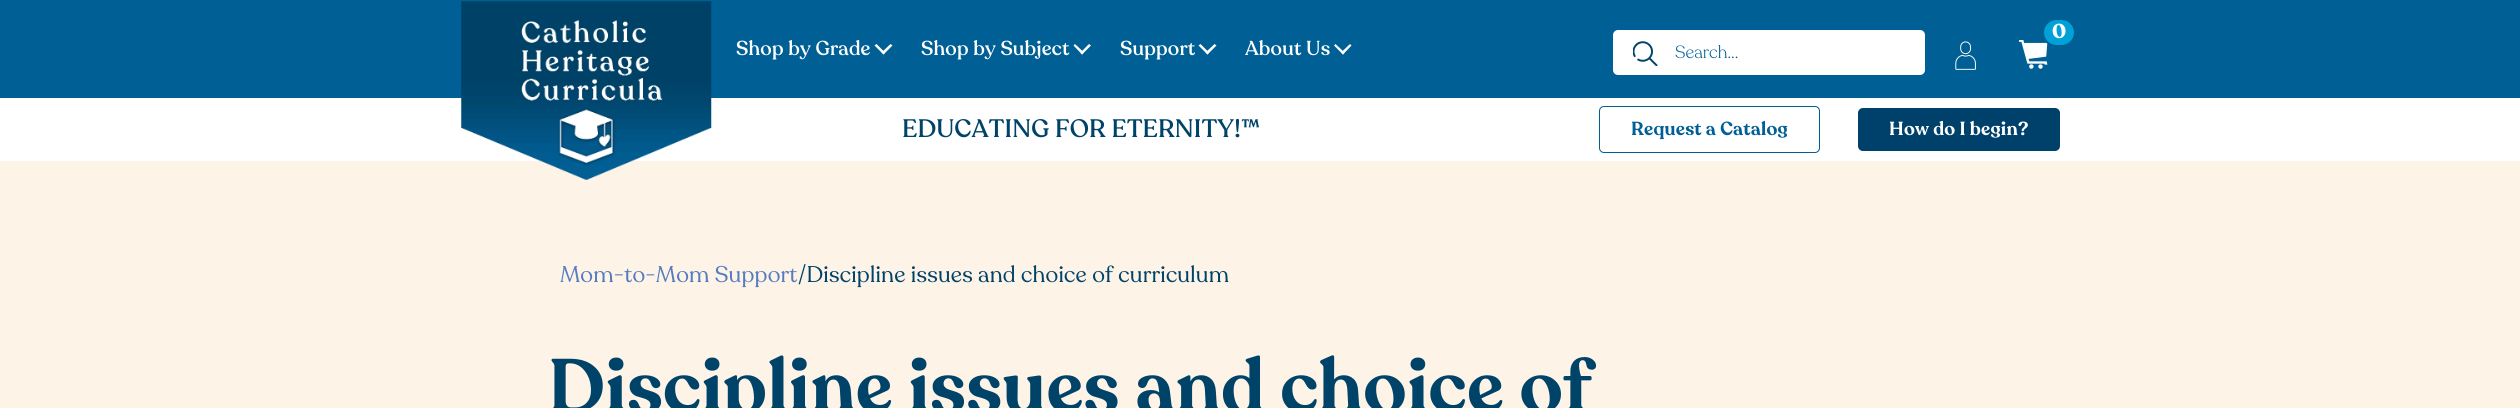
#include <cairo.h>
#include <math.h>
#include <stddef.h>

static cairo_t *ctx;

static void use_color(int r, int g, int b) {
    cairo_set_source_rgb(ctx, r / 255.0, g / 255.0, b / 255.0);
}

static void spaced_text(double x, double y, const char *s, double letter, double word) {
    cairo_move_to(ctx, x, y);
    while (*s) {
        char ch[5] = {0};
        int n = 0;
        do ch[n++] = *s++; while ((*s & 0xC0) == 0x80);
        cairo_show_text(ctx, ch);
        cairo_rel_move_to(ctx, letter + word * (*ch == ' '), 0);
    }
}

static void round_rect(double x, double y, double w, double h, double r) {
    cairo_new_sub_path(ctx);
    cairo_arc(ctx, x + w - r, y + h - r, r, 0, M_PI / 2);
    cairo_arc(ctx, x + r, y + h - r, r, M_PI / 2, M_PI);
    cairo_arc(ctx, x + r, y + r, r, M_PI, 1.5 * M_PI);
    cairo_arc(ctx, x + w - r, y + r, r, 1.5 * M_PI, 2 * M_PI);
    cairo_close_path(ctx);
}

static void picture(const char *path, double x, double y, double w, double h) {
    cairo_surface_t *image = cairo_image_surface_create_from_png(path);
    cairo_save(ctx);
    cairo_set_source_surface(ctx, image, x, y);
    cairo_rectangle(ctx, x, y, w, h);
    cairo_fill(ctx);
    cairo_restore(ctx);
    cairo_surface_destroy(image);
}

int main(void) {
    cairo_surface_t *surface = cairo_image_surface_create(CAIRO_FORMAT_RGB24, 2520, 408);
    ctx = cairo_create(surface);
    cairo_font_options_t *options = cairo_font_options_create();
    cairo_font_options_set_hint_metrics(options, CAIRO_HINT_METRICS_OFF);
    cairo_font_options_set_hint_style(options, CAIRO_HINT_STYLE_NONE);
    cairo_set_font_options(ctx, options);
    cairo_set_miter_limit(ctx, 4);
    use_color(253, 243, 231);
    cairo_paint(ctx);
    use_color(255, 255, 255);
    cairo_rectangle(ctx, 0, 98, 2520, 63);
    cairo_fill(ctx);
    use_color(0, 95, 149);
    cairo_rectangle(ctx, 0, 0, 2520, 98);
    cairo_fill(ctx);
    picture("img1.png", 461, 1, 251, 179);
    cairo_select_font_face(ctx, "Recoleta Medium", CAIRO_FONT_SLANT_NORMAL, CAIRO_FONT_WEIGHT_NORMAL);
    cairo_set_font_size(ctx, 20);
    use_color(255, 255, 255);
    spaced_text(736, 55, "Shop by Grade", 0.2, 0);
    cairo_new_path(ctx);
    cairo_move_to(ctx, 890.5, 44);
    cairo_line_to(ctx, 892.5, 45.5);
    cairo_line_to(ctx, 883.5, 54.5);
    cairo_line_to(ctx, 881.5, 52.5);
    cairo_close_path(ctx);
    cairo_fill(ctx);
    cairo_new_path(ctx);
    cairo_move_to(ctx, 876.5, 44);
    cairo_line_to(ctx, 885, 52.5);
    cairo_line_to(ctx, 883.5, 54.5);
    cairo_line_to(ctx, 874.5, 45.5);
    cairo_close_path(ctx);
    cairo_fill(ctx);
    spaced_text(921, 55, "Shop by Subject", 0.2, 0);
    cairo_new_path(ctx);
    cairo_move_to(ctx, 1089, 44);
    cairo_line_to(ctx, 1091, 45.5);
    cairo_line_to(ctx, 1082, 54.5);
    cairo_line_to(ctx, 1080.5, 52.5);
    cairo_close_path(ctx);
    cairo_fill(ctx);
    cairo_new_path(ctx);
    cairo_move_to(ctx, 1075, 44);
    cairo_line_to(ctx, 1084, 52.5);
    cairo_line_to(ctx, 1082, 54.5);
    cairo_line_to(ctx, 1073.5, 45.5);
    cairo_close_path(ctx);
    cairo_fill(ctx);
    spaced_text(1120, 55, "Support", 0.2, 0);
    cairo_new_path(ctx);
    cairo_move_to(ctx, 1214.5, 44);
    cairo_line_to(ctx, 1216.5, 45.5);
    cairo_line_to(ctx, 1207.5, 54.5);
    cairo_line_to(ctx, 1205.5, 52.5);
    cairo_close_path(ctx);
    cairo_fill(ctx);
    cairo_new_path(ctx);
    cairo_move_to(ctx, 1200.5, 44);
    cairo_line_to(ctx, 1209, 52.5);
    cairo_line_to(ctx, 1207.5, 54.5);
    cairo_line_to(ctx, 1198.5, 45.5);
    cairo_close_path(ctx);
    cairo_fill(ctx);
    spaced_text(1245, 55, "About Us", 0.2, 0);
    cairo_new_path(ctx);
    cairo_move_to(ctx, 1350, 44);
    cairo_line_to(ctx, 1351.5, 45.5);
    cairo_line_to(ctx, 1343, 54.5);
    cairo_line_to(ctx, 1341, 52.5);
    cairo_close_path(ctx);
    cairo_fill(ctx);
    cairo_new_path(ctx);
    cairo_move_to(ctx, 1335.5, 44);
    cairo_line_to(ctx, 1344.5, 52.5);
    cairo_line_to(ctx, 1343, 54.5);
    cairo_line_to(ctx, 1334, 45.5);
    cairo_close_path(ctx);
    cairo_fill(ctx);
    round_rect(1613, 30, 312, 45, 5);
    cairo_fill(ctx);
    picture("img2.png", 1633, 41, 25, 25);
    cairo_select_font_face(ctx, "Recoleta Light", CAIRO_FONT_SLANT_NORMAL, CAIRO_FONT_WEIGHT_NORMAL);
    cairo_set_font_size(ctx, 17.5);
    use_color(0, 95, 149);
    cairo_move_to(ctx, 1675, 58);
    cairo_show_text(ctx, "Search...");
    round_rect(1938.5, 30.5, 55, 48, 4.5);
    use_color(0, 95, 152);
    cairo_set_line_width(ctx, 1);
    cairo_stroke(ctx);
    picture("img3.png", 1955, 41, 21, 29);
    picture("img4.png", 2019, 40, 29, 29);
    use_color(0, 161, 215);
    round_rect(2044, 20, 30, 25, 12.5);
    cairo_fill(ctx);
    cairo_select_font_face(ctx, "Recoleta", CAIRO_FONT_SLANT_NORMAL, CAIRO_FONT_WEIGHT_BOLD);
    cairo_set_font_size(ctx, 20);
    use_color(255, 255, 255);
    spaced_text(2052, 38, "0", 0.2, 0);
    cairo_select_font_face(ctx, "Recoleta Medium", CAIRO_FONT_SLANT_NORMAL, CAIRO_FONT_WEIGHT_NORMAL);
    cairo_set_font_size(ctx, 25);
    use_color(0, 67, 105);
    spaced_text(902, 137, "EDUCATING FOR ETERNITY!™", 0.2, 0);
    round_rect(1599.5, 106.5, 220, 46, 4.5);
    use_color(0, 95, 149);
    cairo_stroke(ctx);
    cairo_select_font_face(ctx, "Recoleta SemiBold", CAIRO_FONT_SLANT_NORMAL, CAIRO_FONT_WEIGHT_NORMAL);
    cairo_set_font_size(ctx, 18.75);
    spaced_text(1631, 135, "Request a Catalog", 0.2, 0);
    use_color(0, 65, 107);
    round_rect(1858, 108, 202, 43, 5);
    cairo_fill(ctx);
    use_color(255, 255, 255);
    spaced_text(1889, 135, "How do I begin?", 0.2, 0);
    cairo_select_font_face(ctx, "Recoleta", CAIRO_FONT_SLANT_NORMAL, CAIRO_FONT_WEIGHT_NORMAL);
    cairo_set_font_size(ctx, 22.5);
    use_color(85, 124, 191);
    spaced_text(560, 282, "Mom-to-Mom Support", 0.2, 0);
    use_color(0, 67, 105);
    spaced_text(798, 282, "/Discipline issues and choice of curriculum", 0.2, 0);
    cairo_select_font_face(ctx, "Recoleta SemiBold", CAIRO_FONT_SLANT_NORMAL, CAIRO_FONT_WEIGHT_NORMAL);
    cairo_set_font_size(ctx, 75);
    spaced_text(548, 412, "Discipline issues and choice of", 0.2, 0);
    cairo_surface_write_to_png(surface, "result.png");
    cairo_font_options_destroy(options);
    cairo_destroy(ctx);
    cairo_surface_destroy(surface);
    return 0;
}
